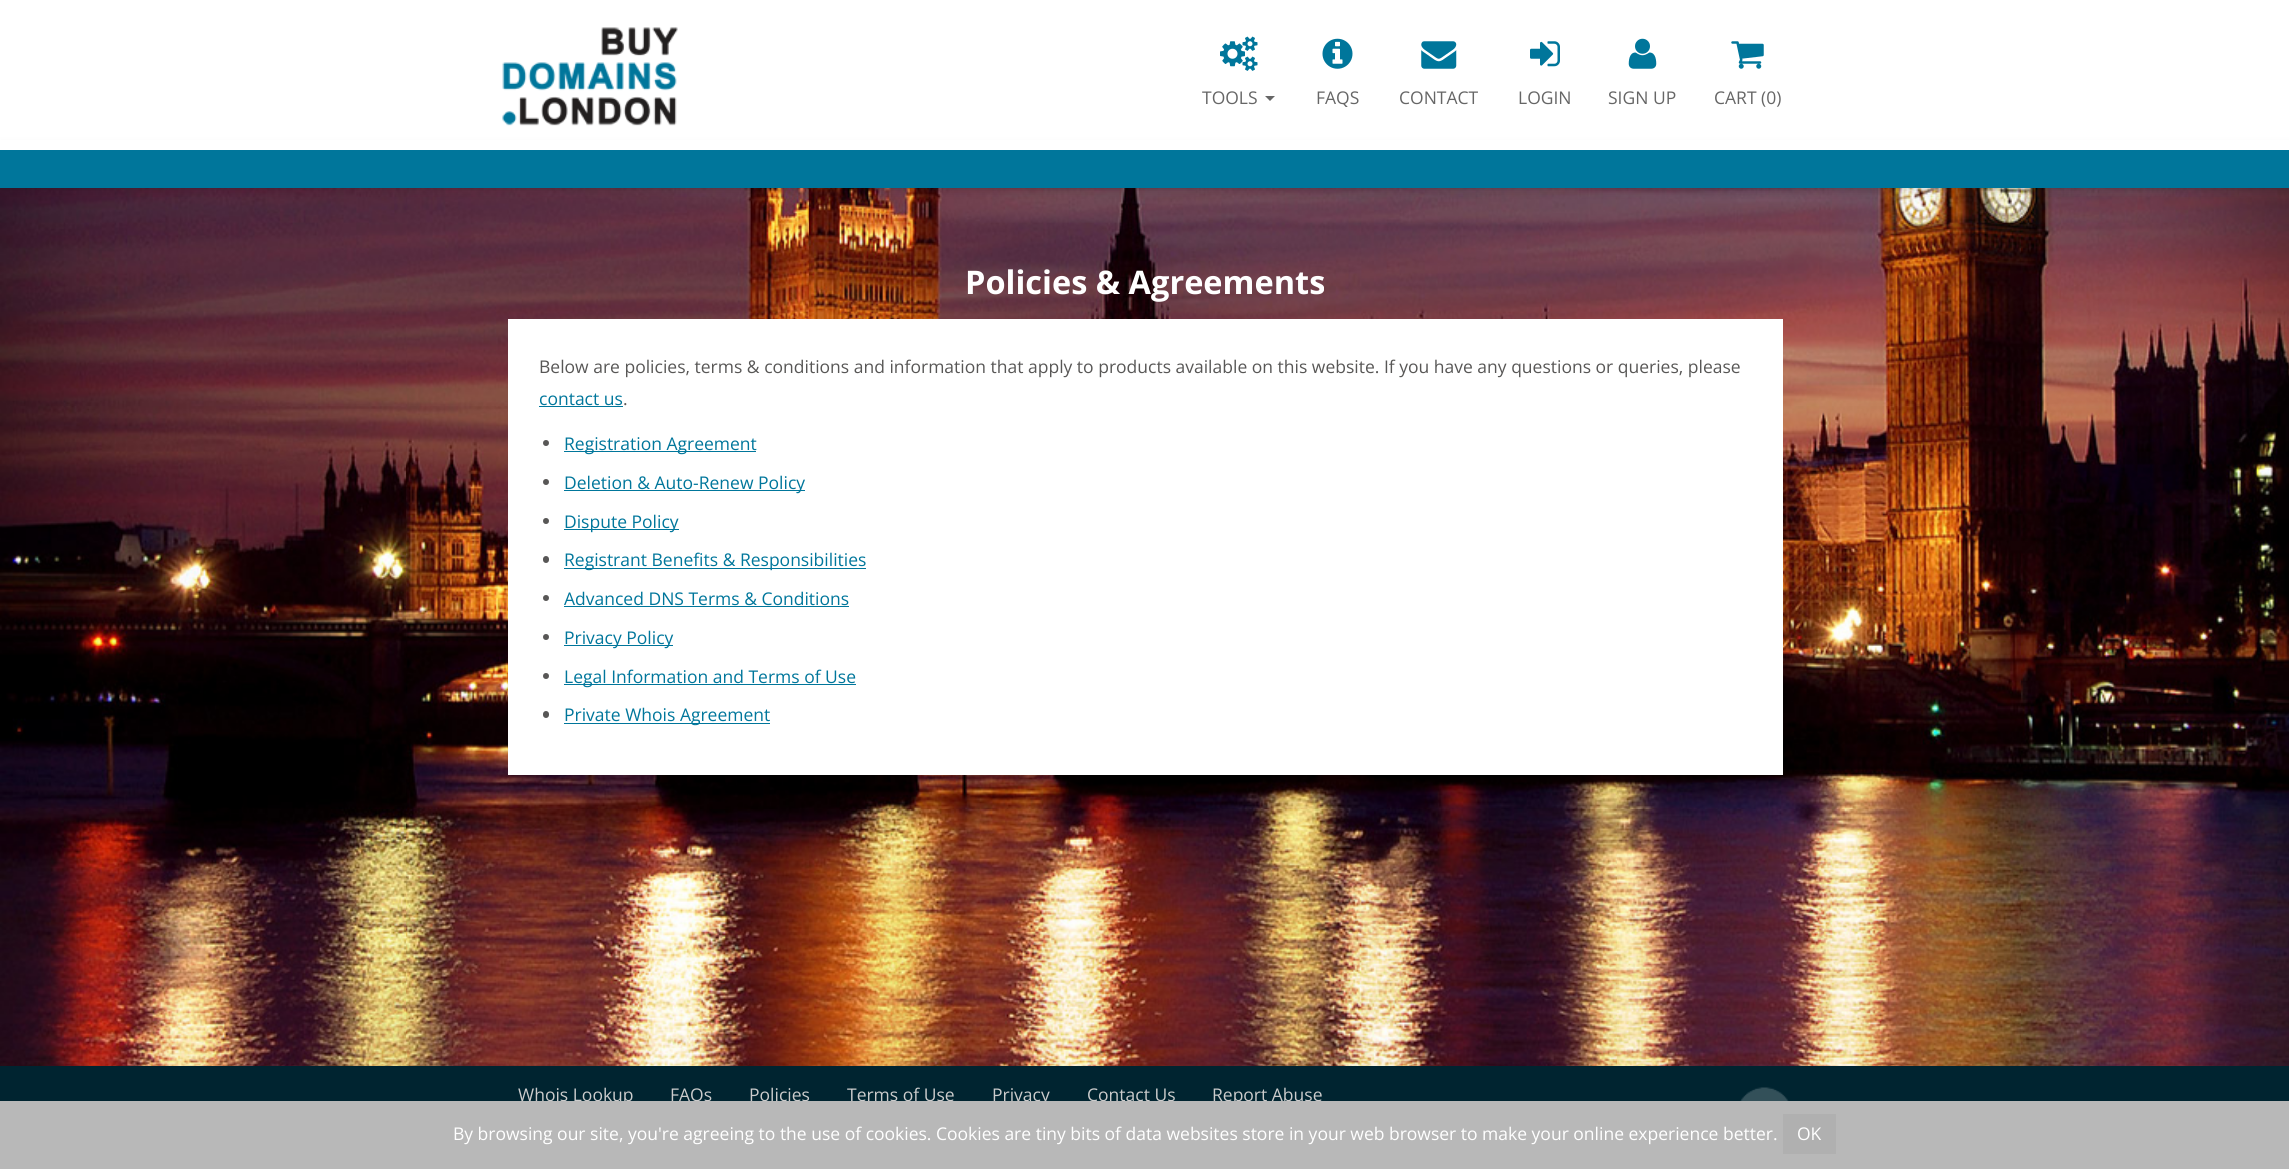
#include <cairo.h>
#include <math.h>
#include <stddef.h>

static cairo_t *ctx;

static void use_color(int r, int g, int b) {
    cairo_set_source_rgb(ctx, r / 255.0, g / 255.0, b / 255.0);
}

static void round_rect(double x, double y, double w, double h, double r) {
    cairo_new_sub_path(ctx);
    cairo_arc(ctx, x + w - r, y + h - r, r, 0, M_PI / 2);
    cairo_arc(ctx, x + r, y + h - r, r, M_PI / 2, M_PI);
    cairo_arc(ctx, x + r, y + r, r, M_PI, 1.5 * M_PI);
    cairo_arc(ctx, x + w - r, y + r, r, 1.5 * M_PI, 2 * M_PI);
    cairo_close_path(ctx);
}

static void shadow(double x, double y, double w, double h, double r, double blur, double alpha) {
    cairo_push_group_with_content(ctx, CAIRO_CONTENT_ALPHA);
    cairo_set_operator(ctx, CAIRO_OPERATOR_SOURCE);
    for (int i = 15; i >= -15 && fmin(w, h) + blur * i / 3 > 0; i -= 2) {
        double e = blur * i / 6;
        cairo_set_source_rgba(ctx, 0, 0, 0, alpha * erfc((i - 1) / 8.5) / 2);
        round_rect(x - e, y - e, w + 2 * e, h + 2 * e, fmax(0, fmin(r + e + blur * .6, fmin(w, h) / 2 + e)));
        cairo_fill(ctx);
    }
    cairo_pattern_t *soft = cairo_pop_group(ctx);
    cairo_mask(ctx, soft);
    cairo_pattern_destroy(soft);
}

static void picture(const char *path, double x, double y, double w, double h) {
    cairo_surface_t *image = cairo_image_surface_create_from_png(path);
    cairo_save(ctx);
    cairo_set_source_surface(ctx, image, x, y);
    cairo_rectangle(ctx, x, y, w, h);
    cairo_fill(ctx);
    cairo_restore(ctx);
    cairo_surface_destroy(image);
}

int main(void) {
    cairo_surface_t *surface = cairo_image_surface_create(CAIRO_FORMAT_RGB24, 2289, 1169);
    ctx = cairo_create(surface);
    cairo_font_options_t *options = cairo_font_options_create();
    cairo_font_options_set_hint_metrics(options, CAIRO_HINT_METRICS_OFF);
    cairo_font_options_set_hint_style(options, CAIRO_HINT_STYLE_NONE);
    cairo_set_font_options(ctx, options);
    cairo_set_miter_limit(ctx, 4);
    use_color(255, 255, 255);
    cairo_paint(ctx);
    picture("img1.png", 0, 188, 2289, 878);
    use_color(0, 0, 0);
    shadow(0, 150, 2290, 38, 0, 6, 0.2);
    use_color(255, 255, 255);
    cairo_rectangle(ctx, 0, 140, 2289, 10);
    cairo_fill(ctx);
    picture("img2.png", 502, 27, 176, 99);
    picture("img3.png", 1220, 36, 38, 35);
    cairo_select_font_face(ctx, "Open Sans", CAIRO_FONT_SLANT_NORMAL, CAIRO_FONT_WEIGHT_NORMAL);
    cairo_set_font_size(ctx, 17.5);
    use_color(102, 102, 102);
    cairo_move_to(ctx, 1202, 104);
    cairo_show_text(ctx, "TOOLS");
    cairo_new_path(ctx);
    cairo_move_to(ctx, 1265, 96);
    cairo_line_to(ctx, 1275, 96);
    cairo_line_to(ctx, 1270, 101);
    cairo_close_path(ctx);
    cairo_fill(ctx);
    picture("img4.png", 1322, 38, 31, 31);
    cairo_move_to(ctx, 1316, 104);
    cairo_show_text(ctx, "FAQS");
    picture("img5.png", 1421, 41, 36, 28);
    cairo_move_to(ctx, 1399, 104);
    cairo_show_text(ctx, "CONTACT");
    picture("img6.png", 1530, 41, 30, 26);
    cairo_move_to(ctx, 1518, 104);
    cairo_show_text(ctx, "LOGIN");
    picture("img7.png", 1628, 38, 29, 31);
    cairo_move_to(ctx, 1608, 104);
    cairo_show_text(ctx, "SIGN UP");
    picture("img8.png", 1731, 41, 33, 28);
    cairo_move_to(ctx, 1714, 104);
    cairo_show_text(ctx, "CART (0)");
    use_color(0, 118, 155);
    cairo_rectangle(ctx, 0, 150, 2289, 38);
    cairo_fill(ctx);
    cairo_select_font_face(ctx, "Open Sans", CAIRO_FONT_SLANT_NORMAL, CAIRO_FONT_WEIGHT_BOLD);
    cairo_set_font_size(ctx, 32.5);
    use_color(255, 255, 255);
    cairo_move_to(ctx, 965, 294);
    cairo_show_text(ctx, "Policies & Agreements");
    use_color(0, 0, 0);
    shadow(508, 320, 1275, 456, 0, 0.5, 0.05);
    use_color(255, 255, 255);
    cairo_rectangle(ctx, 508, 319, 1275, 456);
    cairo_fill(ctx);
    cairo_select_font_face(ctx, "Open Sans", CAIRO_FONT_SLANT_NORMAL, CAIRO_FONT_WEIGHT_NORMAL);
    cairo_set_font_size(ctx, 17.5);
    use_color(88, 87, 86);
    cairo_move_to(ctx, 539, 373);
    cairo_show_text(ctx, "Below are policies, terms & conditions and information that apply to products available on this website. If you have any questions or queries, please");
    use_color(0, 118, 155);
    cairo_move_to(ctx, 539, 405);
    cairo_show_text(ctx, "contact us");
    cairo_rectangle(ctx, 539, 406, 84, 1);
    cairo_fill(ctx);
    use_color(88, 87, 86);
    cairo_move_to(ctx, 623, 405);
    cairo_show_text(ctx, ".");
    cairo_new_path(ctx);
    cairo_arc(ctx, 546, 443, 3, 0, 2 * M_PI);
    cairo_fill(ctx);
    use_color(0, 118, 155);
    cairo_rectangle(ctx, 564, 451, 192, 1);
    cairo_fill(ctx);
    cairo_move_to(ctx, 564, 450);
    cairo_show_text(ctx, "Registration Agreement");
    use_color(88, 87, 86);
    cairo_new_path(ctx);
    cairo_arc(ctx, 546, 482, 3, 0, 2 * M_PI);
    cairo_fill(ctx);
    use_color(0, 118, 155);
    cairo_rectangle(ctx, 564, 490, 241, 1);
    cairo_fill(ctx);
    cairo_move_to(ctx, 564, 489);
    cairo_show_text(ctx, "Deletion & Auto-Renew Policy");
    use_color(88, 87, 86);
    cairo_new_path(ctx);
    cairo_arc(ctx, 546, 521, 3, 0, 2 * M_PI);
    cairo_fill(ctx);
    use_color(0, 118, 155);
    cairo_rectangle(ctx, 564, 529, 115, 1);
    cairo_fill(ctx);
    cairo_move_to(ctx, 564, 528);
    cairo_show_text(ctx, "Dispute Policy");
    use_color(88, 87, 86);
    round_rect(543, 556, 6, 7, 3);
    cairo_fill(ctx);
    use_color(0, 118, 155);
    cairo_rectangle(ctx, 564, 568, 302, 1);
    cairo_fill(ctx);
    cairo_move_to(ctx, 564, 566);
    cairo_show_text(ctx, "Registrant Benefits & Responsibilities");
    use_color(88, 87, 86);
    cairo_new_path(ctx);
    cairo_arc(ctx, 546, 598, 3, 0, 2 * M_PI);
    cairo_fill(ctx);
    use_color(0, 118, 155);
    cairo_move_to(ctx, 564, 605);
    cairo_show_text(ctx, "Advanced DNS Terms & Conditions");
    cairo_rectangle(ctx, 564, 606, 285, 1);
    cairo_fill(ctx);
    use_color(88, 87, 86);
    cairo_arc(ctx, 546, 637, 3, 0, 2 * M_PI);
    cairo_fill(ctx);
    use_color(0, 118, 155);
    cairo_rectangle(ctx, 564, 645, 109, 1);
    cairo_fill(ctx);
    cairo_move_to(ctx, 564, 644);
    cairo_show_text(ctx, "Privacy Policy");
    use_color(88, 87, 86);
    cairo_new_path(ctx);
    cairo_arc(ctx, 546, 676, 3, 0, 2 * M_PI);
    cairo_fill(ctx);
    use_color(0, 118, 155);
    cairo_rectangle(ctx, 564, 684, 292, 1);
    cairo_fill(ctx);
    cairo_move_to(ctx, 564, 683);
    cairo_show_text(ctx, "Legal Information and Terms of Use");
    use_color(88, 87, 86);
    round_rect(543, 711, 6, 7, 3);
    cairo_fill(ctx);
    use_color(0, 118, 155);
    cairo_rectangle(ctx, 564, 723, 206, 1);
    cairo_fill(ctx);
    cairo_move_to(ctx, 564, 721);
    cairo_show_text(ctx, "Private Whois Agreement");
    use_color(0, 36, 48);
    cairo_rectangle(ctx, 0, 1066, 2289, 35);
    cairo_fill(ctx);
    use_color(204, 204, 204);
    cairo_move_to(ctx, 518, 1101);
    cairo_show_text(ctx, "Whois Lookup");
    cairo_move_to(ctx, 670, 1101);
    cairo_show_text(ctx, "FAQs");
    cairo_move_to(ctx, 749, 1101);
    cairo_show_text(ctx, "Policies");
    cairo_move_to(ctx, 847, 1101);
    cairo_show_text(ctx, "Terms of Use");
    cairo_move_to(ctx, 992, 1101);
    cairo_show_text(ctx, "Privacy");
    cairo_move_to(ctx, 1087, 1101);
    cairo_show_text(ctx, "Contact Us");
    cairo_move_to(ctx, 1212, 1101);
    cairo_show_text(ctx, "Report Abuse");
    picture("img9.png", 1740, 1087, 49, 14);
    use_color(184, 184, 184);
    cairo_rectangle(ctx, 0, 1101, 2289, 68);
    cairo_fill(ctx);
    use_color(255, 255, 255);
    cairo_move_to(ctx, 453, 1140);
    cairo_show_text(ctx, "By browsing our site, you're agreeing to the use of cookies. Cookies are tiny bits of data websites store in your web browser to make your online experience better.");
    use_color(176, 176, 176);
    cairo_rectangle(ctx, 1783, 1114, 53, 40);
    cairo_fill(ctx);
    use_color(255, 255, 255);
    cairo_move_to(ctx, 1797, 1140);
    cairo_show_text(ctx, "OK");
    cairo_surface_write_to_png(surface, "result.png");
    cairo_font_options_destroy(options);
    cairo_destroy(ctx);
    cairo_surface_destroy(surface);
    return 0;
}
